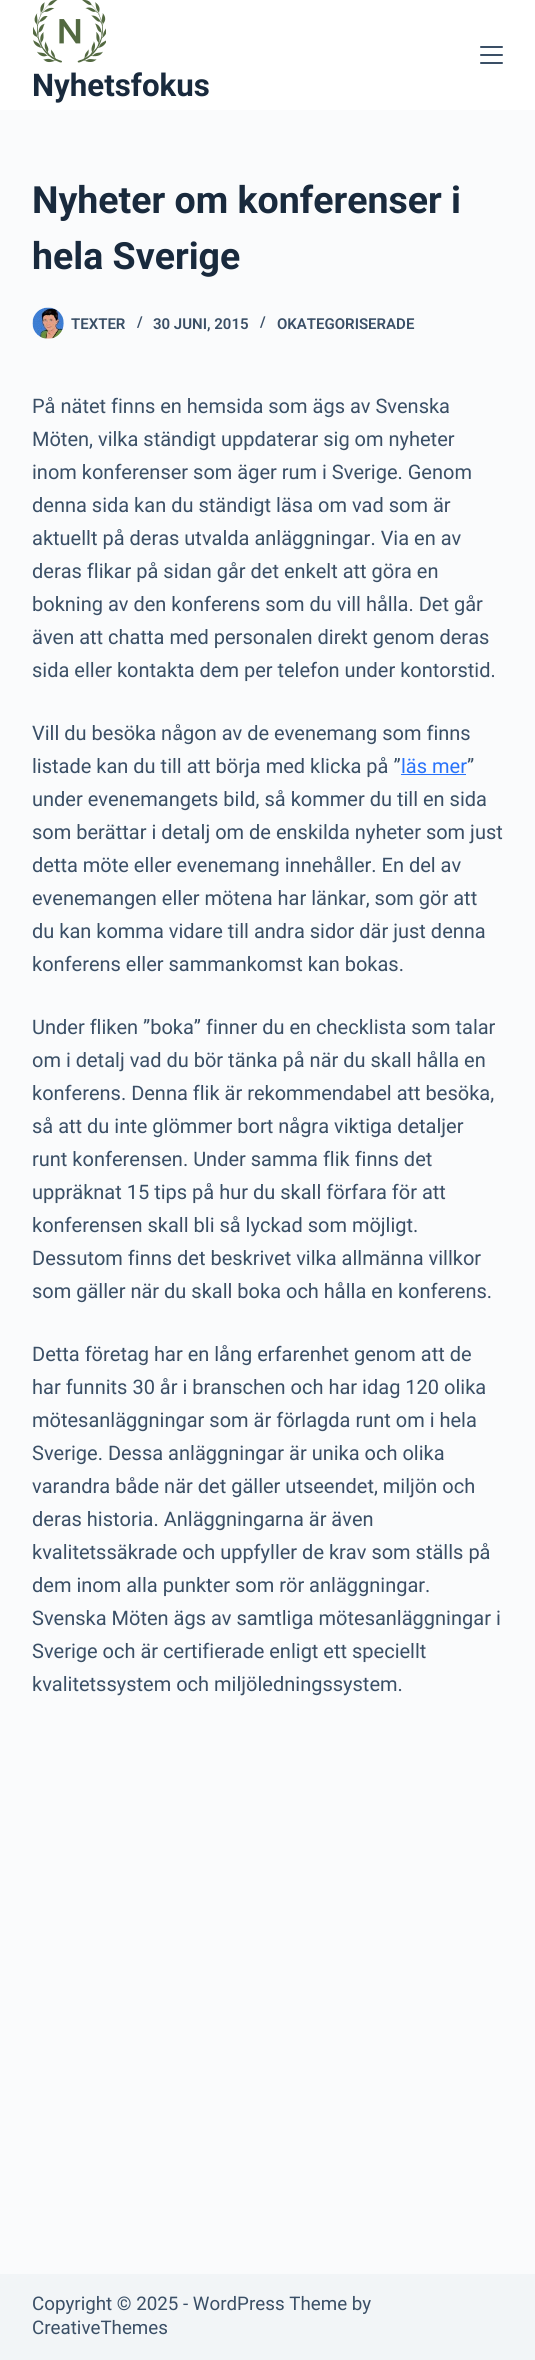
#include <cairo.h>
#include <math.h>
#include <stddef.h>

static cairo_t *ctx;

static void use_color(int r, int g, int b) {
    cairo_set_source_rgb(ctx, r / 255.0, g / 255.0, b / 255.0);
}

static void round_rect(double x, double y, double w, double h, double r) {
    cairo_new_sub_path(ctx);
    cairo_arc(ctx, x + w - r, y + h - r, r, 0, M_PI / 2);
    cairo_arc(ctx, x + r, y + h - r, r, M_PI / 2, M_PI);
    cairo_arc(ctx, x + r, y + r, r, M_PI, 1.5 * M_PI);
    cairo_arc(ctx, x + w - r, y + r, r, 1.5 * M_PI, 2 * M_PI);
    cairo_close_path(ctx);
}

static void picture(const char *path, double x, double y, double w, double h) {
    cairo_surface_t *image = cairo_image_surface_create_from_png(path);
    cairo_save(ctx);
    cairo_set_source_surface(ctx, image, x, y);
    cairo_rectangle(ctx, x, y, w, h);
    cairo_fill(ctx);
    cairo_restore(ctx);
    cairo_surface_destroy(image);
}

int main(void) {
    cairo_surface_t *surface = cairo_image_surface_create(CAIRO_FORMAT_RGB24, 535, 2360);
    ctx = cairo_create(surface);
    cairo_font_options_t *options = cairo_font_options_create();
    cairo_font_options_set_hint_metrics(options, CAIRO_HINT_METRICS_OFF);
    cairo_font_options_set_hint_style(options, CAIRO_HINT_STYLE_NONE);
    cairo_set_font_options(ctx, options);
    cairo_set_miter_limit(ctx, 4);
    use_color(250, 251, 252);
    cairo_paint(ctx);
    use_color(255, 255, 255);
    cairo_rectangle(ctx, 0, 0, 535, 110);
    cairo_fill(ctx);
    use_color(58, 79, 102);
    round_rect(480, 46, 23, 2, 1);
    cairo_fill(ctx);
    round_rect(480, 54, 23, 2, 1);
    cairo_fill(ctx);
    round_rect(480, 62, 23, 2, 1);
    cairo_fill(ctx);
    picture("img1.png", 33, 0, 73, 63);
    cairo_select_font_face(ctx, "Roboto", CAIRO_FONT_SLANT_NORMAL, CAIRO_FONT_WEIGHT_BOLD);
    cairo_set_font_size(ctx, 31.25);
    use_color(25, 42, 61);
    cairo_move_to(ctx, 32, 96);
    cairo_show_text(ctx, "Nyhetsfokus");
    cairo_set_font_size(ctx, 37.5);
    cairo_move_to(ctx, 32, 213);
    cairo_show_text(ctx, "Nyheter om konferenser i");
    cairo_move_to(ctx, 32, 269);
    cairo_show_text(ctx, "hela Sverige");
    picture("img2.png", 32, 307, 32, 32);
    cairo_select_font_face(ctx, "Roboto SemiBold", CAIRO_FONT_SLANT_NORMAL, CAIRO_FONT_WEIGHT_NORMAL);
    cairo_set_font_size(ctx, 15);
    use_color(58, 79, 102);
    cairo_move_to(ctx, 71, 329);
    cairo_show_text(ctx, "TEXTER");
    cairo_move_to(ctx, 137, 327);
    cairo_show_text(ctx, "/");
    cairo_move_to(ctx, 153, 329);
    cairo_show_text(ctx, "30 JUNI, 2015");
    cairo_move_to(ctx, 260, 327);
    cairo_show_text(ctx, "/");
    cairo_move_to(ctx, 277, 329);
    cairo_show_text(ctx, "OKATEGORISERADE");
    cairo_select_font_face(ctx, "Roboto", CAIRO_FONT_SLANT_NORMAL, CAIRO_FONT_WEIGHT_NORMAL);
    cairo_set_font_size(ctx, 20);
    cairo_move_to(ctx, 32, 413);
    cairo_show_text(ctx, "På nätet finns en hemsida som ägs av Svenska");
    cairo_move_to(ctx, 32, 446);
    cairo_show_text(ctx, "Möten, vilka ständigt uppdaterar sig om nyheter");
    cairo_move_to(ctx, 32, 479);
    cairo_show_text(ctx, "inom konferenser som äger rum i Sverige. Genom");
    cairo_move_to(ctx, 32, 512);
    cairo_show_text(ctx, "denna sida kan du ständigt läsa om vad som är");
    cairo_move_to(ctx, 32, 545);
    cairo_show_text(ctx, "aktuellt på deras utvalda anläggningar. Via en av");
    cairo_move_to(ctx, 32, 578);
    cairo_show_text(ctx, "deras flikar på sidan går det enkelt att göra en");
    cairo_move_to(ctx, 32, 611);
    cairo_show_text(ctx, "bokning av den konferens som du vill hålla. Det går");
    cairo_move_to(ctx, 32, 644);
    cairo_show_text(ctx, "även att chatta med personalen direkt genom deras");
    cairo_move_to(ctx, 32, 677);
    cairo_show_text(ctx, "sida eller kontakta dem per telefon under kontorstid.");
    cairo_move_to(ctx, 32, 740);
    cairo_show_text(ctx, "Vill du besöka någon av de evenemang som finns");
    cairo_move_to(ctx, 32, 773);
    cairo_show_text(ctx, "listade kan du till att börja med klicka på ”");
    use_color(40, 114, 250);
    cairo_move_to(ctx, 401, 773);
    cairo_show_text(ctx, "läs mer");
    cairo_rectangle(ctx, 401, 774, 65, 1);
    cairo_fill(ctx);
    use_color(58, 79, 102);
    cairo_move_to(ctx, 467, 773);
    cairo_show_text(ctx, "”");
    cairo_move_to(ctx, 32, 806);
    cairo_show_text(ctx, "under evenemangets bild, så kommer du till en sida");
    cairo_move_to(ctx, 32, 839);
    cairo_show_text(ctx, "som berättar i detalj om de enskilda nyheter som just");
    cairo_move_to(ctx, 32, 872);
    cairo_show_text(ctx, "detta möte eller evenemang innehåller. En del av");
    cairo_move_to(ctx, 32, 905);
    cairo_show_text(ctx, "evenemangen eller mötena har länkar, som gör att");
    cairo_move_to(ctx, 32, 938);
    cairo_show_text(ctx, "du kan komma vidare till andra sidor där just denna");
    cairo_move_to(ctx, 32, 971);
    cairo_show_text(ctx, "konferens eller sammankomst kan bokas.");
    cairo_move_to(ctx, 32, 1034);
    cairo_show_text(ctx, "Under fliken ”boka” finner du en checklista som talar");
    cairo_move_to(ctx, 32, 1067);
    cairo_show_text(ctx, "om i detalj vad du bör tänka på när du skall hålla en");
    cairo_move_to(ctx, 32, 1100);
    cairo_show_text(ctx, "konferens. Denna flik är rekommendabel att besöka,");
    cairo_move_to(ctx, 32, 1133);
    cairo_show_text(ctx, "så att du inte glömmer bort några viktiga detaljer");
    cairo_move_to(ctx, 32, 1166);
    cairo_show_text(ctx, "runt konferensen. Under samma flik finns det");
    cairo_move_to(ctx, 32, 1199);
    cairo_show_text(ctx, "uppräknat 15 tips på hur du skall förfara för att");
    cairo_move_to(ctx, 32, 1232);
    cairo_show_text(ctx, "konferensen skall bli så lyckad som möjligt.");
    cairo_move_to(ctx, 32, 1265);
    cairo_show_text(ctx, "Dessutom finns det beskrivet vilka allmänna villkor");
    cairo_move_to(ctx, 32, 1298);
    cairo_show_text(ctx, "som gäller när du skall boka och hålla en konferens.");
    cairo_move_to(ctx, 32, 1361);
    cairo_show_text(ctx, "Detta företag har en lång erfarenhet genom att de");
    cairo_move_to(ctx, 32, 1394);
    cairo_show_text(ctx, "har funnits 30 år i branschen och har idag 120 olika");
    cairo_move_to(ctx, 32, 1427);
    cairo_show_text(ctx, "mötesanläggningar som är förlagda runt om i hela");
    cairo_move_to(ctx, 32, 1460);
    cairo_show_text(ctx, "Sverige. Dessa anläggningar är unika och olika");
    cairo_move_to(ctx, 32, 1493);
    cairo_show_text(ctx, "varandra både när det gäller utseendet, miljön och");
    cairo_move_to(ctx, 32, 1526);
    cairo_show_text(ctx, "deras historia. Anläggningarna är även");
    cairo_move_to(ctx, 32, 1559);
    cairo_show_text(ctx, "kvalitetssäkrade och uppfyller de krav som ställs på");
    cairo_move_to(ctx, 32, 1592);
    cairo_show_text(ctx, "dem inom alla punkter som rör anläggningar.");
    cairo_move_to(ctx, 32, 1625);
    cairo_show_text(ctx, "Svenska Möten ägs av samtliga mötesanläggningar i");
    cairo_move_to(ctx, 32, 1658);
    cairo_show_text(ctx, "Sverige och är certifierade enligt ett speciellt");
    cairo_move_to(ctx, 32, 1691);
    cairo_show_text(ctx, "kvalitetssystem och miljöledningssystem.");
    use_color(242, 245, 247);
    cairo_rectangle(ctx, 0, 2274, 535, 86);
    cairo_fill(ctx);
    cairo_set_font_size(ctx, 18.75);
    use_color(58, 79, 102);
    cairo_move_to(ctx, 32, 2310);
    cairo_show_text(ctx, "Copyright © 2025 - WordPress Theme by");
    cairo_move_to(ctx, 32, 2334);
    cairo_show_text(ctx, "CreativeThemes");
    cairo_surface_write_to_png(surface, "result.png");
    cairo_font_options_destroy(options);
    cairo_destroy(ctx);
    cairo_surface_destroy(surface);
    return 0;
}
